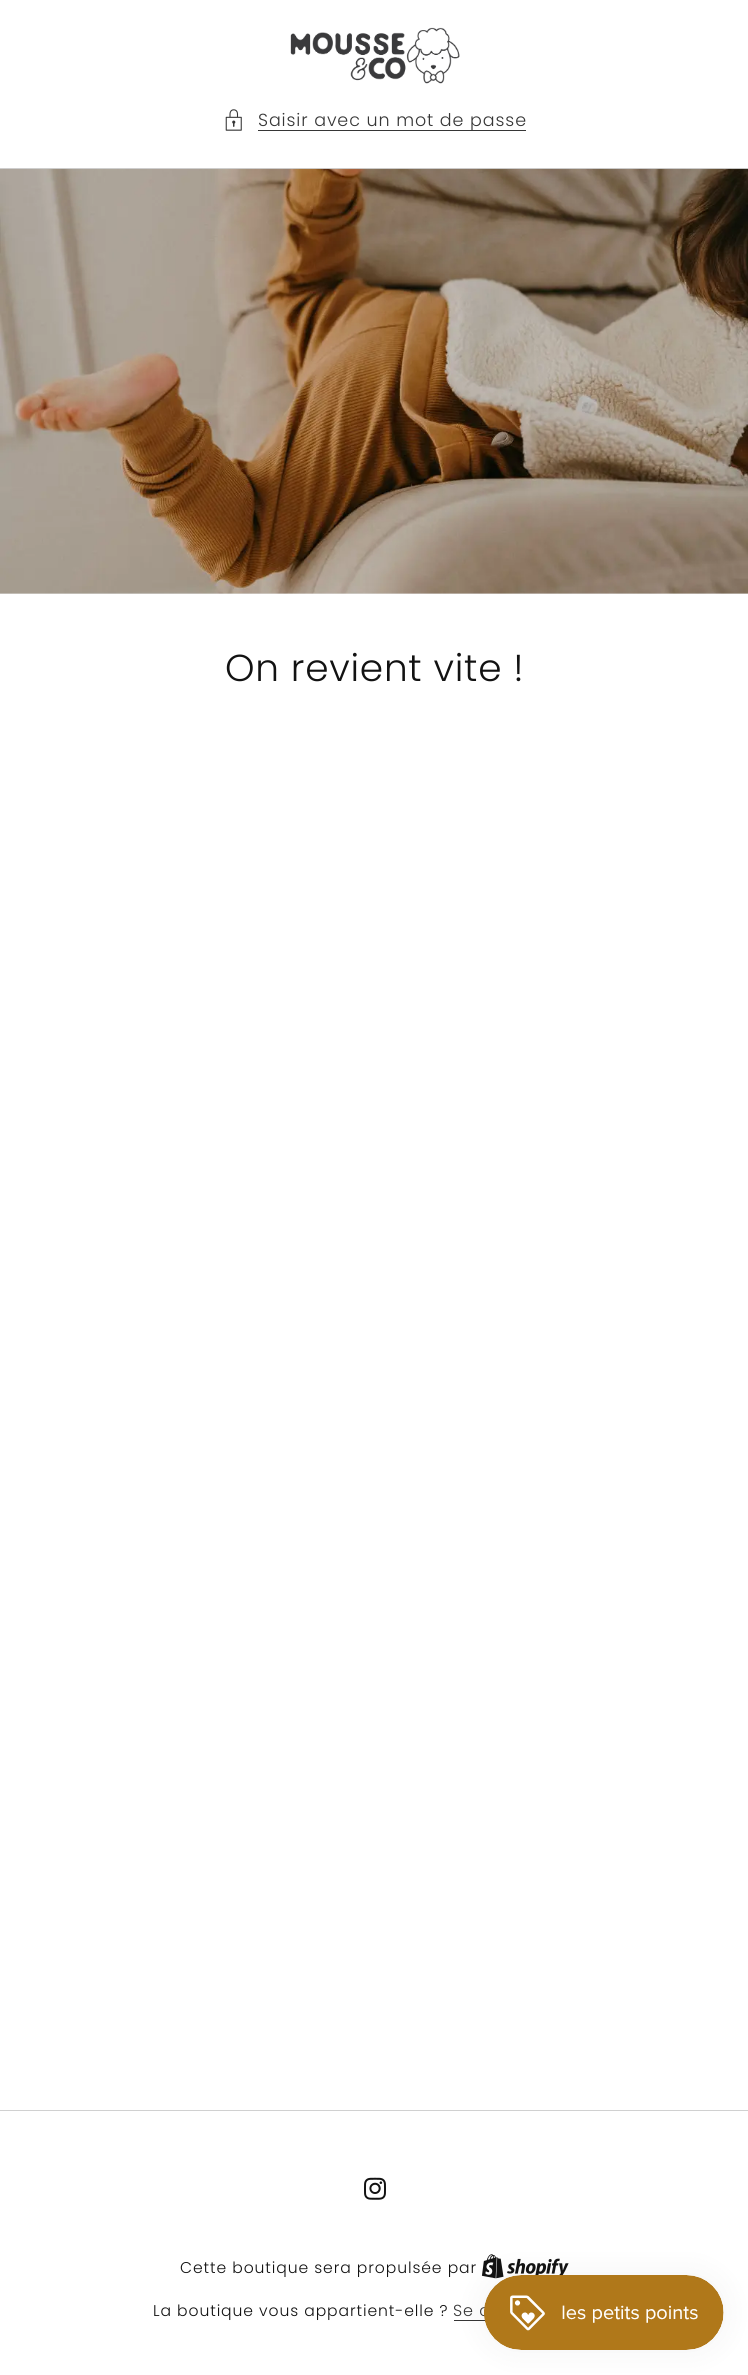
#include <cairo.h>
#include <math.h>
#include <stddef.h>

static cairo_t *ctx;

static void use_color(int r, int g, int b) {
    cairo_set_source_rgb(ctx, r / 255.0, g / 255.0, b / 255.0);
}

static void spaced_text(double x, double y, const char *s, double letter, double word) {
    cairo_move_to(ctx, x, y);
    while (*s) {
        char ch[5] = {0};
        int n = 0;
        do ch[n++] = *s++; while ((*s & 0xC0) == 0x80);
        cairo_show_text(ctx, ch);
        cairo_rel_move_to(ctx, letter + word * (*ch == ' '), 0);
    }
}

static void round_rect(double x, double y, double w, double h, double r) {
    cairo_new_sub_path(ctx);
    cairo_arc(ctx, x + w - r, y + h - r, r, 0, M_PI / 2);
    cairo_arc(ctx, x + r, y + h - r, r, M_PI / 2, M_PI);
    cairo_arc(ctx, x + r, y + r, r, M_PI, 1.5 * M_PI);
    cairo_arc(ctx, x + w - r, y + r, r, 1.5 * M_PI, 2 * M_PI);
    cairo_close_path(ctx);
}

static void shadow(double x, double y, double w, double h, double r, double blur, double alpha) {
    cairo_push_group_with_content(ctx, CAIRO_CONTENT_ALPHA);
    cairo_set_operator(ctx, CAIRO_OPERATOR_SOURCE);
    for (int i = 15; i >= -15 && fmin(w, h) + blur * i / 3 > 0; i -= 2) {
        double e = blur * i / 6;
        cairo_set_source_rgba(ctx, 0, 0, 0, alpha * erfc((i - 1) / 8.5) / 2);
        round_rect(x - e, y - e, w + 2 * e, h + 2 * e, fmax(0, fmin(r + e + blur * .6, fmin(w, h) / 2 + e)));
        cairo_fill(ctx);
    }
    cairo_pattern_t *soft = cairo_pop_group(ctx);
    cairo_mask(ctx, soft);
    cairo_pattern_destroy(soft);
}

static void picture(const char *path, double x, double y, double w, double h) {
    cairo_surface_t *image = cairo_image_surface_create_from_png(path);
    cairo_save(ctx);
    cairo_set_source_surface(ctx, image, x, y);
    cairo_rectangle(ctx, x, y, w, h);
    cairo_fill(ctx);
    cairo_restore(ctx);
    cairo_surface_destroy(image);
}

int main(void) {
    cairo_surface_t *surface = cairo_image_surface_create(CAIRO_FORMAT_RGB24, 748, 2375);
    ctx = cairo_create(surface);
    cairo_font_options_t *options = cairo_font_options_create();
    cairo_font_options_set_hint_metrics(options, CAIRO_HINT_METRICS_OFF);
    cairo_font_options_set_hint_style(options, CAIRO_HINT_STYLE_NONE);
    cairo_set_font_options(ctx, options);
    cairo_set_miter_limit(ctx, 4);
    use_color(255, 255, 255);
    cairo_paint(ctx);
    picture("img1.png", 290, 27, 170, 57);
    picture("img2.png", 225, 109, 17, 22);
    use_color(54, 54, 54);
    cairo_rectangle(ctx, 258, 130, 268, 1);
    cairo_fill(ctx);
    cairo_select_font_face(ctx, "Poppins Light", CAIRO_FONT_SLANT_NORMAL, CAIRO_FONT_WEIGHT_NORMAL);
    cairo_set_font_size(ctx, 17.5);
    spaced_text(258, 126, "Saisir avec un mot de passe", 0.9, 0);
    use_color(208, 208, 208);
    cairo_rectangle(ctx, 0, 168, 748, 1);
    cairo_fill(ctx);
    use_color(232, 232, 232);
    cairo_rectangle(ctx, 0, 593, 748, 1);
    cairo_fill(ctx);
    picture("img3.png", 0, 168, 748, 426);
    cairo_set_font_size(ctx, 37.5);
    use_color(18, 18, 18);
    spaced_text(225, 681, "On revient vite !", 0.75, 0);
    use_color(208, 208, 208);
    cairo_rectangle(ctx, 0, 2110, 748, 1);
    cairo_fill(ctx);
    picture("img4.png", 364, 2177, 22, 23);
    cairo_set_font_size(ctx, 15.6);
    use_color(18, 18, 18);
    spaced_text(180, 2273, "Cette boutique sera propulsée par", 0.9, 0);
    picture("img5.png", 481, 2254, 88, 25);
    spaced_text(153, 2316, "La boutique vous appartient-elle ?", 0.9, 0);
    cairo_set_font_size(ctx, 16);
    use_color(54, 54, 54);
    spaced_text(453, 2316, "Se c", 0.9, 0);
    cairo_rectangle(ctx, 454, 2320, 31, 1);
    cairo_fill(ctx);
    use_color(0, 0, 0);
    shadow(484, 2275, 240, 75, 37.5, 15.5, 0.05);
    picture("img6.png", 484, 2275, 240, 75);
    cairo_surface_write_to_png(surface, "result.png");
    cairo_font_options_destroy(options);
    cairo_destroy(ctx);
    cairo_surface_destroy(surface);
    return 0;
}
